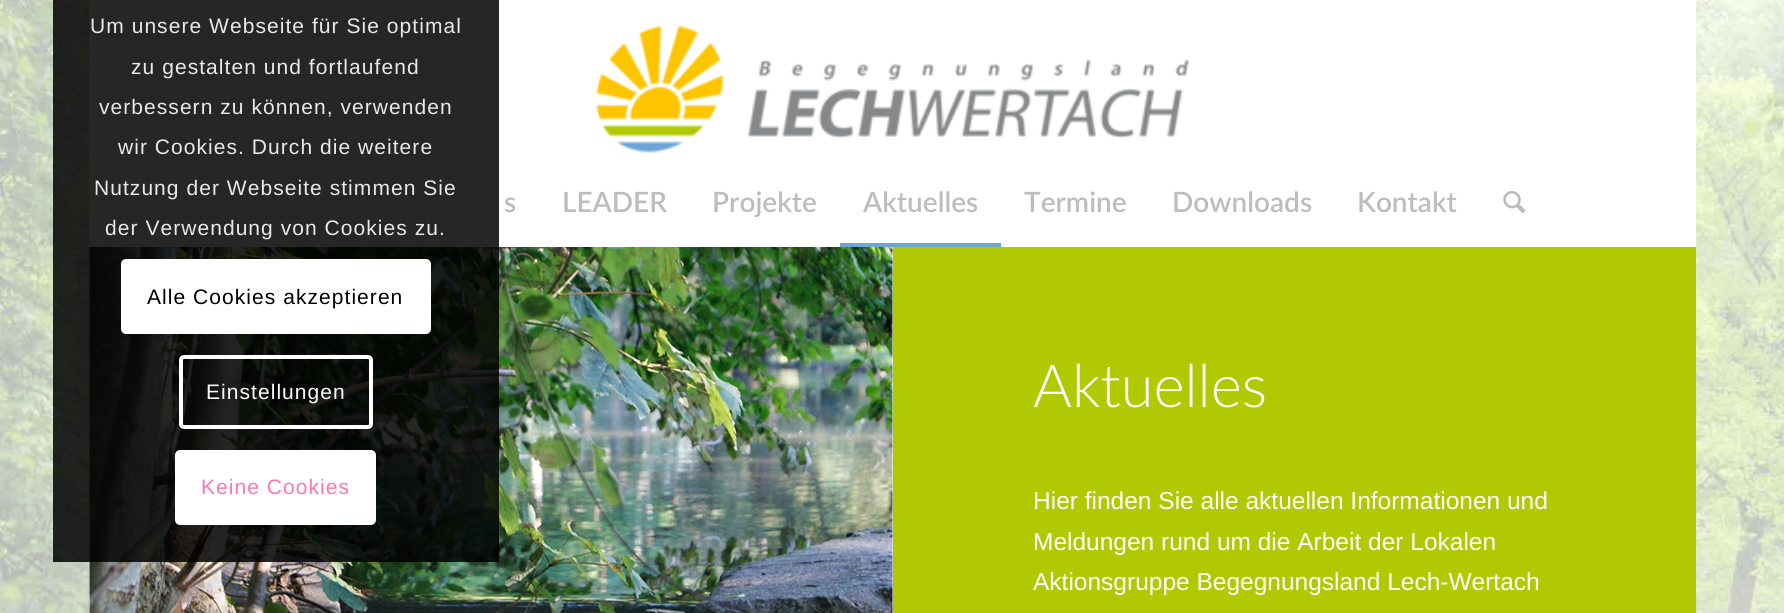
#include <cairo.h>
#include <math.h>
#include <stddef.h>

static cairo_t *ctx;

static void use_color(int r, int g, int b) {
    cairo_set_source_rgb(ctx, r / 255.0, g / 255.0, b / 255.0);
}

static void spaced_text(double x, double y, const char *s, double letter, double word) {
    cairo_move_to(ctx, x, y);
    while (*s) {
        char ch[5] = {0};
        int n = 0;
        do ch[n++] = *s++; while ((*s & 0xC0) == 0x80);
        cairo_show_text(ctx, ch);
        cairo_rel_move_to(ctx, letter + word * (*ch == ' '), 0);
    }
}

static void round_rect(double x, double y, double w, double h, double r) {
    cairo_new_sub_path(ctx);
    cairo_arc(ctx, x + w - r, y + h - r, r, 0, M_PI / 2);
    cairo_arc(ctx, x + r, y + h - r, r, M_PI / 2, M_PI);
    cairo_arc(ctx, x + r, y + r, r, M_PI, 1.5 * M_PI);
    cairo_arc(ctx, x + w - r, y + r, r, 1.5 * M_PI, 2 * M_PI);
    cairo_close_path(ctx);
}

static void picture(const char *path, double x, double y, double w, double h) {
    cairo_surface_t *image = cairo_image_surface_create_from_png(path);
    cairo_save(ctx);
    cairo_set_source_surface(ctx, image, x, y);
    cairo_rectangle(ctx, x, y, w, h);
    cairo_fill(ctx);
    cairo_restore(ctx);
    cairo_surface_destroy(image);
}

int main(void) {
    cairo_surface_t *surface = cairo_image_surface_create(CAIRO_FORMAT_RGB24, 1784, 613);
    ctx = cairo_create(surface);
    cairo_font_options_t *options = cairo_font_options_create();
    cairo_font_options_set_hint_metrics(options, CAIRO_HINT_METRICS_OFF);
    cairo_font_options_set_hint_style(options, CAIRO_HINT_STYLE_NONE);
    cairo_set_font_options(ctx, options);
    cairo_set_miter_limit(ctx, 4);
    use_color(255, 255, 255);
    cairo_paint(ctx);
    picture("img1.png", 0, 0, 1784, 613);
    use_color(255, 255, 255);
    cairo_rectangle(ctx, 89, 0, 1607, 613);
    cairo_fill(ctx);
    picture("img4.png", 89, 247, 804, 366);
    cairo_set_source_rgba(ctx, 0, 0, 0, 0.85);
    cairo_rectangle(ctx, 53, 0, 446, 562);
    cairo_fill(ctx);
    cairo_select_font_face(ctx, "Liberation Sans", CAIRO_FONT_SLANT_NORMAL, CAIRO_FONT_WEIGHT_NORMAL);
    cairo_set_font_size(ctx, 21);
    use_color(233, 233, 233);
    spaced_text(90, 33, "Um unsere Webseite für Sie optimal", 1.05, 0);
    spaced_text(131, 74, "zu gestalten und fortlaufend", 1.05, 0);
    spaced_text(99, 114, "verbessern zu können, verwenden", 1.05, 0);
    spaced_text(118, 154, "wir Cookies. Durch die weitere", 1.05, 0);
    spaced_text(94, 195, "Nutzung der Webseite stimmen Sie", 1.05, 0);
    spaced_text(105, 235, "der Verwendung von Cookies zu.", 1.05, 0);
    use_color(255, 255, 255);
    round_rect(121, 259, 310, 75, 5);
    cairo_fill(ctx);
    use_color(0, 0, 0);
    spaced_text(147, 304, "Alle Cookies akzeptieren", 1.05, 0);
    round_rect(181, 357, 190, 70, 3);
    use_color(255, 255, 255);
    cairo_set_line_width(ctx, 4);
    cairo_stroke(ctx);
    spaced_text(206, 399, "Einstellungen", 1.05, 0);
    round_rect(177, 452, 197, 71, 3);
    cairo_fill_preserve(ctx);
    cairo_stroke(ctx);
    use_color(255, 117, 181);
    spaced_text(201, 494, "Keine Cookies", 1.05, 0);
    picture("img2.png", 596, 25, 593, 128);
    cairo_select_font_face(ctx, "Lato SemiBold", CAIRO_FONT_SLANT_NORMAL, CAIRO_FONT_WEIGHT_NORMAL);
    cairo_set_font_size(ctx, 28);
    use_color(189, 189, 189);
    cairo_move_to(ctx, 504, 212);
    cairo_show_text(ctx, "s");
    cairo_move_to(ctx, 562, 212);
    cairo_show_text(ctx, "LEADER");
    cairo_move_to(ctx, 712, 212);
    cairo_show_text(ctx, "Projekte");
    cairo_move_to(ctx, 863, 212);
    cairo_show_text(ctx, "Aktuelles");
    use_color(108, 166, 213);
    cairo_rectangle(ctx, 840, 243, 161, 4);
    cairo_fill(ctx);
    use_color(189, 189, 189);
    cairo_move_to(ctx, 1024, 212);
    cairo_show_text(ctx, "Termine");
    cairo_move_to(ctx, 1172, 212);
    cairo_show_text(ctx, "Downloads");
    cairo_move_to(ctx, 1357, 212);
    cairo_show_text(ctx, "Kontakt");
    picture("img3.png", 1503, 190, 23, 23);
    use_color(177, 201, 3);
    cairo_rectangle(ctx, 893, 247, 803, 366);
    cairo_fill(ctx);
    cairo_select_font_face(ctx, "Lato Light", CAIRO_FONT_SLANT_NORMAL, CAIRO_FONT_WEIGHT_NORMAL);
    cairo_set_font_size(ctx, 59.5);
    use_color(255, 255, 255);
    cairo_move_to(ctx, 1033, 407);
    cairo_show_text(ctx, "Aktuelles");
    cairo_select_font_face(ctx, "Liberation Sans", CAIRO_FONT_SLANT_NORMAL, CAIRO_FONT_WEIGHT_NORMAL);
    cairo_set_font_size(ctx, 24.5);
    cairo_move_to(ctx, 1033, 509);
    cairo_show_text(ctx, "Hier finden Sie alle aktuellen Informationen und");
    cairo_move_to(ctx, 1033, 550);
    cairo_show_text(ctx, "Meldungen rund um die Arbeit der Lokalen");
    cairo_move_to(ctx, 1033, 590);
    cairo_show_text(ctx, "Aktionsgruppe Begegnungsland Lech-Wertach");
    cairo_surface_write_to_png(surface, "result.png");
    cairo_font_options_destroy(options);
    cairo_destroy(ctx);
    cairo_surface_destroy(surface);
    return 0;
}
